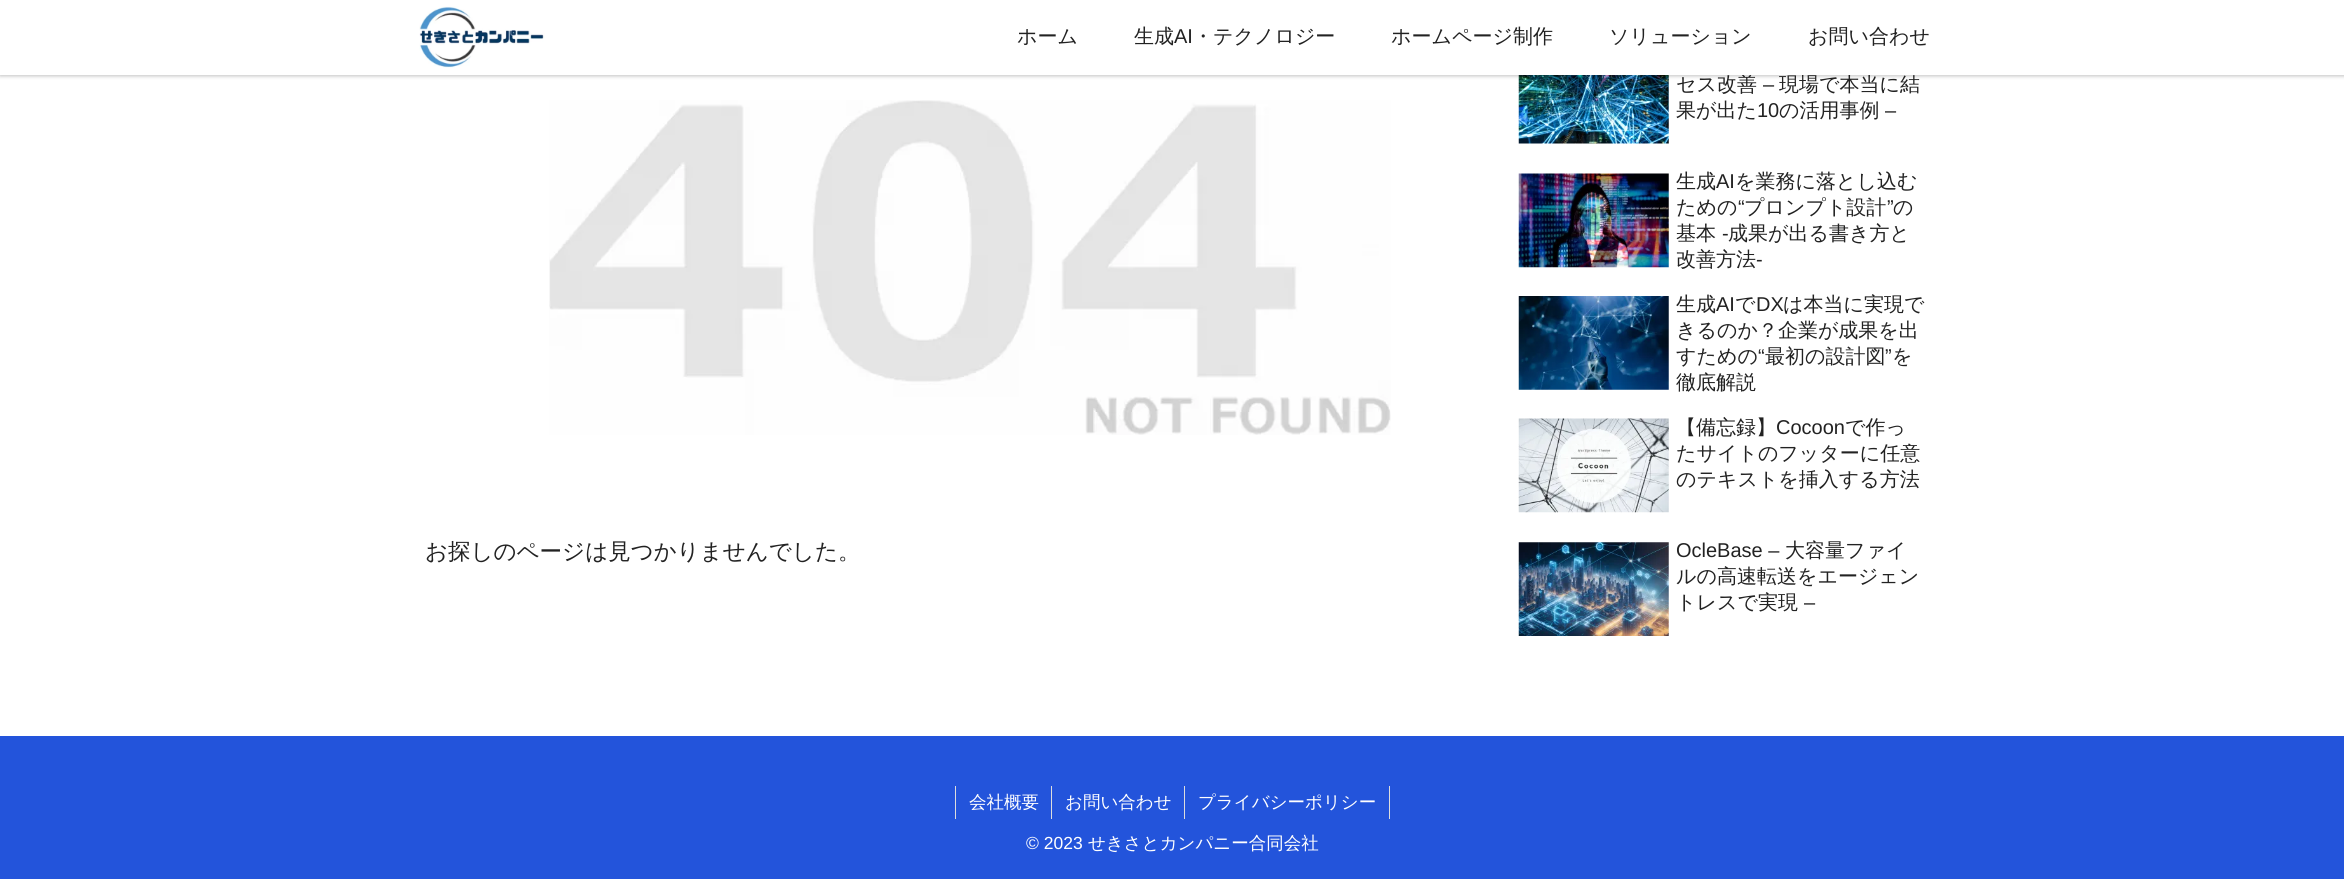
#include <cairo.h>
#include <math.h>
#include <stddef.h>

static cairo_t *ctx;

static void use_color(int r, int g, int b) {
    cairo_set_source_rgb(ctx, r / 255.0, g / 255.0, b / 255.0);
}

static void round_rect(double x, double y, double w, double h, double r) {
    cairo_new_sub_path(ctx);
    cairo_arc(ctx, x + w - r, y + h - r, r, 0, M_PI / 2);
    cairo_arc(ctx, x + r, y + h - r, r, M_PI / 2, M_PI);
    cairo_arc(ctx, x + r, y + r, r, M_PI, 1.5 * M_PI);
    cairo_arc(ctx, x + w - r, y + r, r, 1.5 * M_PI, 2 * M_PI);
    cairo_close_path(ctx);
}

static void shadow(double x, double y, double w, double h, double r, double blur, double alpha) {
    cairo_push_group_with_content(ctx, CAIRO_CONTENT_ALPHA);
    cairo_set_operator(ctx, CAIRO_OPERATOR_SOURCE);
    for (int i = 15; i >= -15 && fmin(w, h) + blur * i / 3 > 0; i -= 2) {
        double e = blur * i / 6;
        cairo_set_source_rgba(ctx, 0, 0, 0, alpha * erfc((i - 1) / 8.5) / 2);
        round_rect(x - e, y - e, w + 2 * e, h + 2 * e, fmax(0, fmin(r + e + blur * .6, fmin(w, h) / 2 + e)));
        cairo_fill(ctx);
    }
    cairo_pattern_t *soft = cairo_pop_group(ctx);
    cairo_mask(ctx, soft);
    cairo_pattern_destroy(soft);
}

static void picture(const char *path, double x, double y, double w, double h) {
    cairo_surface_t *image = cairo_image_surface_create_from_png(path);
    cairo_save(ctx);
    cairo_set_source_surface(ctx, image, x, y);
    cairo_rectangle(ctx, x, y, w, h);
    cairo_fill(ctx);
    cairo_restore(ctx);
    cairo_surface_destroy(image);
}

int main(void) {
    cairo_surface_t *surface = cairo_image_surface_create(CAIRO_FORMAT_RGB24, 2344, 879);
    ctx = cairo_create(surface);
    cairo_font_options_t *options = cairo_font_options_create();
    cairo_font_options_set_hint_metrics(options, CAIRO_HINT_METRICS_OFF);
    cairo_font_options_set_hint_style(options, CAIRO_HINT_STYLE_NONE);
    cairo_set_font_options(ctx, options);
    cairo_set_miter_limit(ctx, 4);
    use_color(255, 255, 255);
    cairo_paint(ctx);
    picture("img3.png", 1518, 75, 151, 69);
    use_color(0, 0, 0);
    shadow(0, 1, 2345, 75, 0, 2, 0.25);
    cairo_select_font_face(ctx, "WenQuanYi Zen Hei Medium", CAIRO_FONT_SLANT_NORMAL, CAIRO_FONT_WEIGHT_NORMAL);
    cairo_set_font_size(ctx, 20);
    use_color(34, 34, 34);
    cairo_move_to(ctx, 1676, 91);
    cairo_show_text(ctx, "セス改善");
    cairo_move_to(ctx, 1779, 91);
    cairo_show_text(ctx, "現場で本当に結");
    use_color(255, 255, 255);
    cairo_rectangle(ctx, 0, 0, 2344, 75);
    cairo_fill(ctx);
    picture("img1.png", 419, 6, 126, 62);
    use_color(34, 34, 34);
    cairo_move_to(ctx, 1017, 43);
    cairo_show_text(ctx, "ホーム");
    cairo_move_to(ctx, 1134, 43);
    cairo_show_text(ctx, "生成");
    cairo_select_font_face(ctx, "Liberation Sans", CAIRO_FONT_SLANT_NORMAL, CAIRO_FONT_WEIGHT_NORMAL);
    cairo_move_to(ctx, 1174, 43);
    cairo_show_text(ctx, "AI");
    cairo_select_font_face(ctx, "WenQuanYi Zen Hei Medium", CAIRO_FONT_SLANT_NORMAL, CAIRO_FONT_WEIGHT_NORMAL);
    cairo_move_to(ctx, 1193, 43);
    cairo_show_text(ctx, "・テクノロジー");
    cairo_move_to(ctx, 1391, 43);
    cairo_show_text(ctx, "ホームページ制作");
    cairo_move_to(ctx, 1609, 43);
    cairo_show_text(ctx, "ソリューション");
    cairo_move_to(ctx, 1808, 43);
    cairo_show_text(ctx, "お問い合わせ");
    picture("img2.png", 549, 100, 842, 335);
    cairo_set_font_size(ctx, 22.5);
    cairo_move_to(ctx, 425, 559);
    cairo_show_text(ctx, "お探しのページは見つかりませんでした。");
    cairo_select_font_face(ctx, "Liberation Sans", CAIRO_FONT_SLANT_NORMAL, CAIRO_FONT_WEIGHT_NORMAL);
    cairo_set_font_size(ctx, 20);
    cairo_move_to(ctx, 1763, 91);
    cairo_show_text(ctx, "–");
    cairo_select_font_face(ctx, "WenQuanYi Zen Hei Medium", CAIRO_FONT_SLANT_NORMAL, CAIRO_FONT_WEIGHT_NORMAL);
    cairo_move_to(ctx, 1676, 117);
    cairo_show_text(ctx, "果が出た");
    cairo_select_font_face(ctx, "Liberation Sans", CAIRO_FONT_SLANT_NORMAL, CAIRO_FONT_WEIGHT_NORMAL);
    cairo_move_to(ctx, 1757, 117);
    cairo_show_text(ctx, "10");
    cairo_select_font_face(ctx, "WenQuanYi Zen Hei Medium", CAIRO_FONT_SLANT_NORMAL, CAIRO_FONT_WEIGHT_NORMAL);
    cairo_move_to(ctx, 1779, 117);
    cairo_show_text(ctx, "の活用事例");
    cairo_select_font_face(ctx, "Liberation Sans", CAIRO_FONT_SLANT_NORMAL, CAIRO_FONT_WEIGHT_NORMAL);
    cairo_move_to(ctx, 1885, 117);
    cairo_show_text(ctx, "–");
    picture("img4.png", 1518, 173, 151, 95);
    cairo_select_font_face(ctx, "WenQuanYi Zen Hei Medium", CAIRO_FONT_SLANT_NORMAL, CAIRO_FONT_WEIGHT_NORMAL);
    cairo_move_to(ctx, 1676, 188);
    cairo_show_text(ctx, "生成");
    cairo_select_font_face(ctx, "Liberation Sans", CAIRO_FONT_SLANT_NORMAL, CAIRO_FONT_WEIGHT_NORMAL);
    cairo_move_to(ctx, 1716, 188);
    cairo_show_text(ctx, "AI");
    cairo_select_font_face(ctx, "WenQuanYi Zen Hei Medium", CAIRO_FONT_SLANT_NORMAL, CAIRO_FONT_WEIGHT_NORMAL);
    cairo_move_to(ctx, 1735, 188);
    cairo_show_text(ctx, "を業務に落とし込む");
    cairo_move_to(ctx, 1676, 214);
    cairo_show_text(ctx, "ための");
    cairo_select_font_face(ctx, "Liberation Sans", CAIRO_FONT_SLANT_NORMAL, CAIRO_FONT_WEIGHT_NORMAL);
    cairo_move_to(ctx, 1738, 214);
    cairo_show_text(ctx, "“");
    cairo_select_font_face(ctx, "WenQuanYi Zen Hei Medium", CAIRO_FONT_SLANT_NORMAL, CAIRO_FONT_WEIGHT_NORMAL);
    cairo_move_to(ctx, 1744, 214);
    cairo_show_text(ctx, "プロンプト設計");
    cairo_select_font_face(ctx, "Liberation Sans", CAIRO_FONT_SLANT_NORMAL, CAIRO_FONT_WEIGHT_NORMAL);
    cairo_move_to(ctx, 1887, 214);
    cairo_show_text(ctx, "”");
    cairo_select_font_face(ctx, "WenQuanYi Zen Hei Medium", CAIRO_FONT_SLANT_NORMAL, CAIRO_FONT_WEIGHT_NORMAL);
    cairo_move_to(ctx, 1893, 214);
    cairo_show_text(ctx, "の");
    cairo_move_to(ctx, 1676, 240);
    cairo_show_text(ctx, "基本");
    cairo_select_font_face(ctx, "Liberation Sans", CAIRO_FONT_SLANT_NORMAL, CAIRO_FONT_WEIGHT_NORMAL);
    cairo_move_to(ctx, 1722, 240);
    cairo_show_text(ctx, "-");
    cairo_select_font_face(ctx, "WenQuanYi Zen Hei Medium", CAIRO_FONT_SLANT_NORMAL, CAIRO_FONT_WEIGHT_NORMAL);
    cairo_move_to(ctx, 1728, 240);
    cairo_show_text(ctx, "成果が出る書き方と");
    cairo_move_to(ctx, 1676, 266);
    cairo_show_text(ctx, "改善方法");
    cairo_select_font_face(ctx, "Liberation Sans", CAIRO_FONT_SLANT_NORMAL, CAIRO_FONT_WEIGHT_NORMAL);
    cairo_move_to(ctx, 1756, 266);
    cairo_show_text(ctx, "-");
    picture("img5.png", 1518, 296, 151, 94);
    cairo_select_font_face(ctx, "WenQuanYi Zen Hei Medium", CAIRO_FONT_SLANT_NORMAL, CAIRO_FONT_WEIGHT_NORMAL);
    cairo_move_to(ctx, 1676, 311);
    cairo_show_text(ctx, "生成");
    cairo_select_font_face(ctx, "Liberation Sans", CAIRO_FONT_SLANT_NORMAL, CAIRO_FONT_WEIGHT_NORMAL);
    cairo_move_to(ctx, 1716, 311);
    cairo_show_text(ctx, "AI");
    cairo_select_font_face(ctx, "WenQuanYi Zen Hei Medium", CAIRO_FONT_SLANT_NORMAL, CAIRO_FONT_WEIGHT_NORMAL);
    cairo_move_to(ctx, 1735, 311);
    cairo_show_text(ctx, "で");
    cairo_select_font_face(ctx, "Liberation Sans", CAIRO_FONT_SLANT_NORMAL, CAIRO_FONT_WEIGHT_NORMAL);
    cairo_move_to(ctx, 1756, 311);
    cairo_show_text(ctx, "DX");
    cairo_select_font_face(ctx, "WenQuanYi Zen Hei Medium", CAIRO_FONT_SLANT_NORMAL, CAIRO_FONT_WEIGHT_NORMAL);
    cairo_move_to(ctx, 1783, 311);
    cairo_show_text(ctx, "は本当に実現で");
    cairo_move_to(ctx, 1676, 337);
    cairo_show_text(ctx, "きるのか？企業が成果を出");
    cairo_move_to(ctx, 1676, 363);
    cairo_show_text(ctx, "すための");
    cairo_select_font_face(ctx, "Liberation Sans", CAIRO_FONT_SLANT_NORMAL, CAIRO_FONT_WEIGHT_NORMAL);
    cairo_move_to(ctx, 1758, 363);
    cairo_show_text(ctx, "“");
    cairo_select_font_face(ctx, "WenQuanYi Zen Hei Medium", CAIRO_FONT_SLANT_NORMAL, CAIRO_FONT_WEIGHT_NORMAL);
    cairo_move_to(ctx, 1765, 363);
    cairo_show_text(ctx, "最初の設計図");
    cairo_select_font_face(ctx, "Liberation Sans", CAIRO_FONT_SLANT_NORMAL, CAIRO_FONT_WEIGHT_NORMAL);
    cairo_move_to(ctx, 1885, 363);
    cairo_show_text(ctx, "”");
    cairo_select_font_face(ctx, "WenQuanYi Zen Hei Medium", CAIRO_FONT_SLANT_NORMAL, CAIRO_FONT_WEIGHT_NORMAL);
    cairo_move_to(ctx, 1892, 363);
    cairo_show_text(ctx, "を");
    cairo_move_to(ctx, 1676, 389);
    cairo_show_text(ctx, "徹底解説");
    picture("img6.png", 1518, 418, 151, 95);
    cairo_move_to(ctx, 1676, 434);
    cairo_show_text(ctx, "【備忘録】");
    cairo_select_font_face(ctx, "Liberation Sans", CAIRO_FONT_SLANT_NORMAL, CAIRO_FONT_WEIGHT_NORMAL);
    cairo_move_to(ctx, 1776, 434);
    cairo_show_text(ctx, "Cocoon");
    cairo_select_font_face(ctx, "WenQuanYi Zen Hei Medium", CAIRO_FONT_SLANT_NORMAL, CAIRO_FONT_WEIGHT_NORMAL);
    cairo_move_to(ctx, 1845, 434);
    cairo_show_text(ctx, "で作っ");
    cairo_move_to(ctx, 1676, 460);
    cairo_show_text(ctx, "たサイトのフッターに任意");
    cairo_move_to(ctx, 1676, 486);
    cairo_show_text(ctx, "のテキストを挿入する方法");
    picture("img7.png", 1518, 542, 151, 94);
    cairo_select_font_face(ctx, "Liberation Sans", CAIRO_FONT_SLANT_NORMAL, CAIRO_FONT_WEIGHT_NORMAL);
    cairo_move_to(ctx, 1676, 557);
    cairo_show_text(ctx, "OcleBase –");
    cairo_select_font_face(ctx, "WenQuanYi Zen Hei Medium", CAIRO_FONT_SLANT_NORMAL, CAIRO_FONT_WEIGHT_NORMAL);
    cairo_move_to(ctx, 1785, 557);
    cairo_show_text(ctx, "大容量ファイ");
    cairo_move_to(ctx, 1676, 583);
    cairo_show_text(ctx, "ルの高速転送をエージェン");
    cairo_move_to(ctx, 1676, 609);
    cairo_show_text(ctx, "トレスで実現");
    cairo_select_font_face(ctx, "Liberation Sans", CAIRO_FONT_SLANT_NORMAL, CAIRO_FONT_WEIGHT_NORMAL);
    cairo_move_to(ctx, 1804, 609);
    cairo_show_text(ctx, "–");
    use_color(35, 84, 219);
    cairo_rectangle(ctx, 0, 736, 2344, 143);
    cairo_fill(ctx);
    use_color(221, 221, 221);
    cairo_rectangle(ctx, 955, 786, 1, 33);
    cairo_fill(ctx);
    cairo_select_font_face(ctx, "WenQuanYi Zen Hei Medium", CAIRO_FONT_SLANT_NORMAL, CAIRO_FONT_WEIGHT_NORMAL);
    cairo_set_font_size(ctx, 17.5);
    use_color(255, 255, 255);
    cairo_move_to(ctx, 969, 808);
    cairo_show_text(ctx, "会社概要");
    use_color(221, 221, 221);
    cairo_rectangle(ctx, 1051, 786, 1, 33);
    cairo_fill(ctx);
    use_color(255, 255, 255);
    cairo_move_to(ctx, 1065, 808);
    cairo_show_text(ctx, "お問い合わせ");
    use_color(221, 221, 221);
    cairo_rectangle(ctx, 1389, 786, 1, 33);
    cairo_fill(ctx);
    cairo_rectangle(ctx, 1184, 786, 1, 33);
    cairo_fill(ctx);
    use_color(255, 255, 255);
    cairo_move_to(ctx, 1198, 808);
    cairo_show_text(ctx, "プライバシーポリシー");
    cairo_select_font_face(ctx, "Liberation Sans", CAIRO_FONT_SLANT_NORMAL, CAIRO_FONT_WEIGHT_NORMAL);
    cairo_move_to(ctx, 1026, 849);
    cairo_show_text(ctx, "© 2023");
    cairo_select_font_face(ctx, "WenQuanYi Zen Hei Medium", CAIRO_FONT_SLANT_NORMAL, CAIRO_FONT_WEIGHT_NORMAL);
    cairo_move_to(ctx, 1088, 849);
    cairo_show_text(ctx, "せきさとカンパニー合同会社");
    cairo_surface_write_to_png(surface, "result.png");
    cairo_font_options_destroy(options);
    cairo_destroy(ctx);
    cairo_surface_destroy(surface);
    return 0;
}
